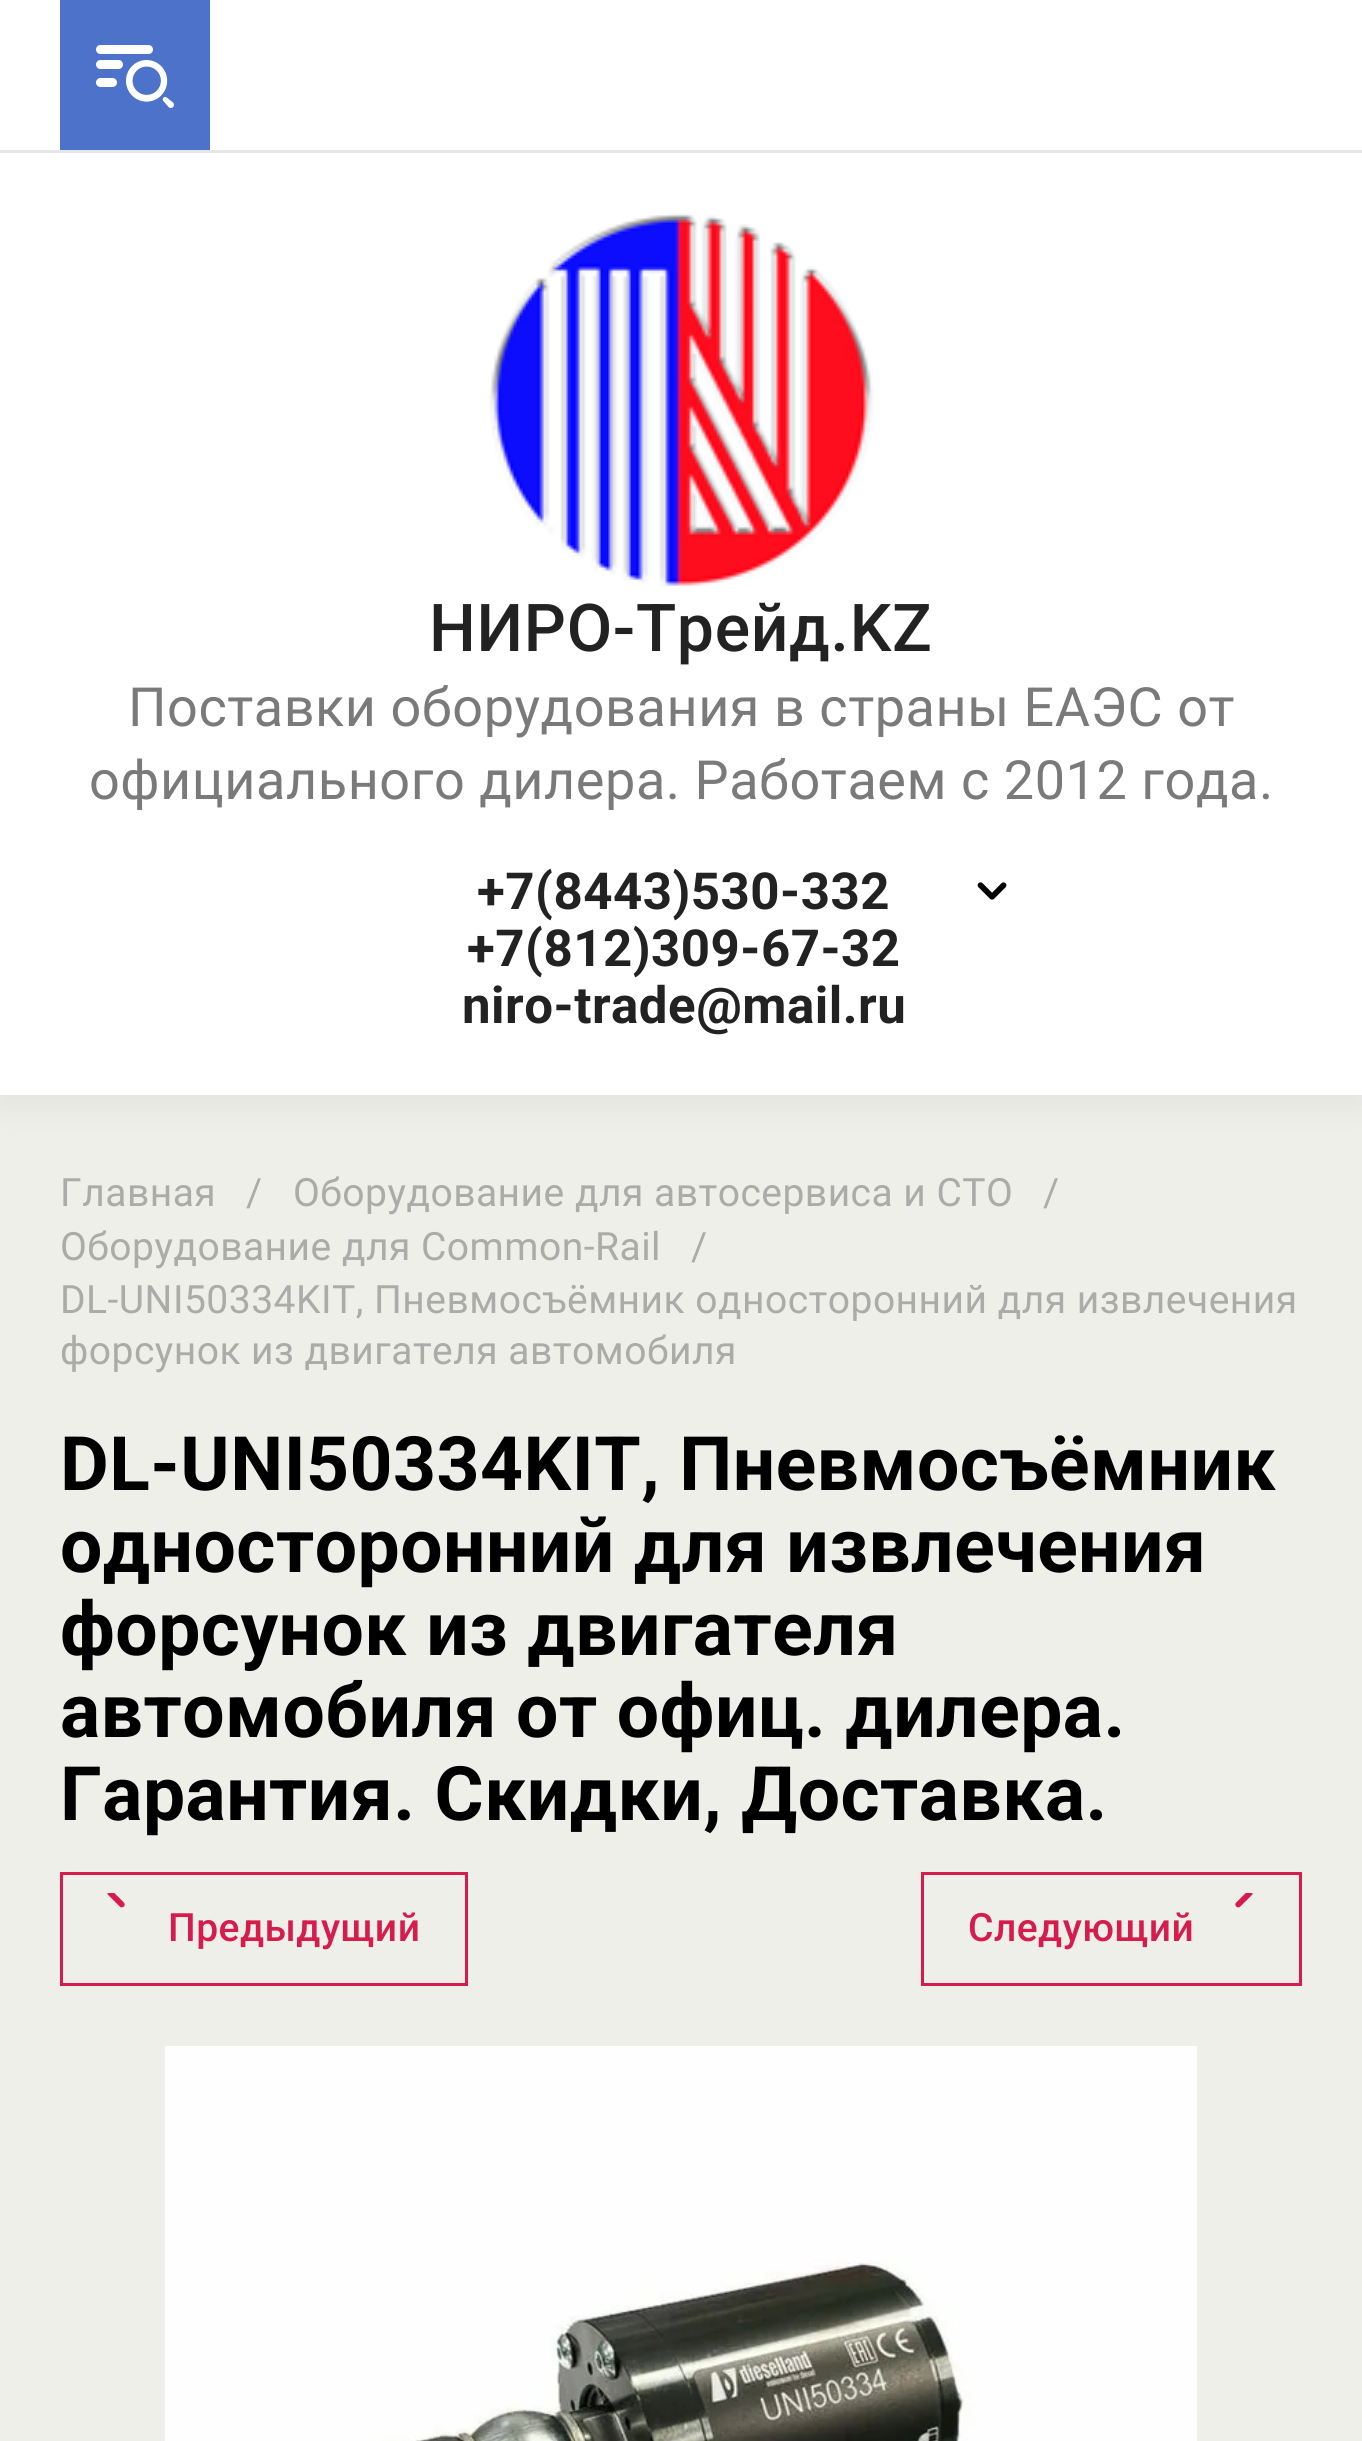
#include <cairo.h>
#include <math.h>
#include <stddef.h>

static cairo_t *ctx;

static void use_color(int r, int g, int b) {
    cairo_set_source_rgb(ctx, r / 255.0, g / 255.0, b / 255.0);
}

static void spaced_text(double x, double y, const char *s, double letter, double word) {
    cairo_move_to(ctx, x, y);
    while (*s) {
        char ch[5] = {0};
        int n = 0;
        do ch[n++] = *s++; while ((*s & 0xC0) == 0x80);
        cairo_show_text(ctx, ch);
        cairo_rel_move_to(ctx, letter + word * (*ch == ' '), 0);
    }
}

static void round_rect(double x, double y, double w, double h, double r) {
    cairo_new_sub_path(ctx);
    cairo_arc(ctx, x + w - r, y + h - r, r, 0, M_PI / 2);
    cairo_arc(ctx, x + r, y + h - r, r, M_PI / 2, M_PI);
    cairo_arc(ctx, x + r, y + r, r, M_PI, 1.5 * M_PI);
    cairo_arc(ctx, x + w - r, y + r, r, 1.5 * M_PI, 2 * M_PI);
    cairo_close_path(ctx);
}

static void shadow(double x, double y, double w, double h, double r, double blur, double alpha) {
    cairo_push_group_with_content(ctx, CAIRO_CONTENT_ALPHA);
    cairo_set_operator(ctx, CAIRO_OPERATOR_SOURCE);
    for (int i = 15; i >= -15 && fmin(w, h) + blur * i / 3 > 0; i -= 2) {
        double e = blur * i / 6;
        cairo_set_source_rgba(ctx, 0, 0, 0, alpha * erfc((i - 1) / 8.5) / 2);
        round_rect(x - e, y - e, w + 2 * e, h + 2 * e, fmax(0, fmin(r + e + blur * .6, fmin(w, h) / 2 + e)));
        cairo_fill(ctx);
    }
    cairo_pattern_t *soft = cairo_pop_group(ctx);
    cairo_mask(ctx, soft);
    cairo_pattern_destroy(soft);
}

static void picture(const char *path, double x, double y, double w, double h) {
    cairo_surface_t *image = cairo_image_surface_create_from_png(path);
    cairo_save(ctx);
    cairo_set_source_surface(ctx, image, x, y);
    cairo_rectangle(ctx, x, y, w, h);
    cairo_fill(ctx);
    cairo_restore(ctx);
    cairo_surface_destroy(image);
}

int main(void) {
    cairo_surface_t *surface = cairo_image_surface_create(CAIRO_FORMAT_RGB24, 1362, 2441);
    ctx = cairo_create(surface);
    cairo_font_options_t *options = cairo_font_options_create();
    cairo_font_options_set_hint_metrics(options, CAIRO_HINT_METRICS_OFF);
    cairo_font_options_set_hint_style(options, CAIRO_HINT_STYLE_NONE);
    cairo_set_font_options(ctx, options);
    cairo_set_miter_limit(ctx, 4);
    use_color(238, 239, 233);
    cairo_paint(ctx);
    use_color(0, 0, 0);
    shadow(0, 12, 1362, 1095, 0, 15, 0.05);
    use_color(255, 255, 255);
    cairo_rectangle(ctx, 0, 0, 1362, 1095);
    cairo_fill(ctx);
    use_color(77, 114, 202);
    cairo_rectangle(ctx, 60, 0, 150, 150);
    cairo_fill(ctx);
    picture("img1.png", 96, 45, 78, 63);
    use_color(230, 230, 230);
    cairo_rectangle(ctx, 0, 150, 1362, 3);
    cairo_fill(ctx);
    picture("img2.png", 489, 213, 385, 374);
    cairo_select_font_face(ctx, "Roboto Medium", CAIRO_FONT_SLANT_NORMAL, CAIRO_FONT_WEIGHT_NORMAL);
    cairo_set_font_size(ctx, 66);
    use_color(34, 34, 34);
    spaced_text(429, 651, "НИРО-Трейд.KZ", 0.7, 0);
    cairo_select_font_face(ctx, "Roboto", CAIRO_FONT_SLANT_NORMAL, CAIRO_FONT_WEIGHT_NORMAL);
    cairo_set_font_size(ctx, 54);
    use_color(122, 122, 122);
    spaced_text(128, 726, "Поставки оборудования в страны ЕАЭС от", 0.55, 0);
    spaced_text(89, 799, "официального дилера. Работаем с 2012 года.", 0.55, 0);
    cairo_select_font_face(ctx, "Roboto", CAIRO_FONT_SLANT_NORMAL, CAIRO_FONT_WEIGHT_BOLD);
    cairo_set_font_size(ctx, 51);
    use_color(34, 34, 34);
    spaced_text(477, 909, "+7(8443)530-332", 0.5, 0);
    spaced_text(467, 966, "+7(812)309-67-32", 0.5, 0);
    spaced_text(462, 1023, "niro-trade@mail.ru", 0.5, 0);
    picture("img3.png", 977, 882, 30, 18);
    cairo_select_font_face(ctx, "Roboto", CAIRO_FONT_SLANT_NORMAL, CAIRO_FONT_WEIGHT_NORMAL);
    cairo_set_font_size(ctx, 39);
    use_color(171, 172, 169);
    spaced_text(60, 1206, "Главная", 0.48, 0);
    spaced_text(246, 1206, "/", 0.48, 0);
    spaced_text(293, 1206, "Оборудование для автосервиса и СТО", 0.48, 0);
    spaced_text(1043, 1206, "/", 0.48, 0);
    spaced_text(60, 1260, "Оборудование для Common-Rail", 0.48, 0);
    spaced_text(691, 1260, "/", 0.48, 0);
    spaced_text(60, 1313, "DL-UNI50334KIT, Пневмосъёмник односторонний для извлечения", 0.48, 0);
    spaced_text(60, 1364, "форсунок из двигателя автомобиля", 0.48, 0);
    cairo_select_font_face(ctx, "Roboto", CAIRO_FONT_SLANT_NORMAL, CAIRO_FONT_WEIGHT_BOLD);
    cairo_set_font_size(ctx, 75);
    use_color(0, 0, 0);
    spaced_text(60, 1490, "DL-UNI50334KIT, Пневмосъёмник", 0.48, 0);
    spaced_text(60, 1572, "односторонний для извлечения", 0.48, 0);
    spaced_text(60, 1655, "форсунок из двигателя", 0.48, 0);
    spaced_text(60, 1737, "автомобиля от офиц. дилера.", 0.48, 0);
    spaced_text(60, 1820, "Гарантия. Скидки, Доставка.", 0.48, 0);
    cairo_rectangle(ctx, 61.5, 1873.5, 405, 111);
    use_color(213, 28, 76);
    cairo_set_line_width(ctx, 3);
    cairo_stroke(ctx);
    picture("img4.png", 107, 1893, 18, 15);
    cairo_select_font_face(ctx, "Roboto Medium", CAIRO_FONT_SLANT_NORMAL, CAIRO_FONT_WEIGHT_NORMAL);
    cairo_set_font_size(ctx, 39);
    spaced_text(168, 1941, "Предыдущий", 0.48, 0);
    cairo_rectangle(ctx, 922.5, 1873.5, 378, 111);
    cairo_stroke(ctx);
    picture("img5.png", 1235, 1893, 18, 15);
    spaced_text(968, 1941, "Следующий", 0.48, 0);
    picture("img6.png", 165, 2046, 1032, 395);
    cairo_surface_write_to_png(surface, "result.png");
    cairo_font_options_destroy(options);
    cairo_destroy(ctx);
    cairo_surface_destroy(surface);
    return 0;
}
